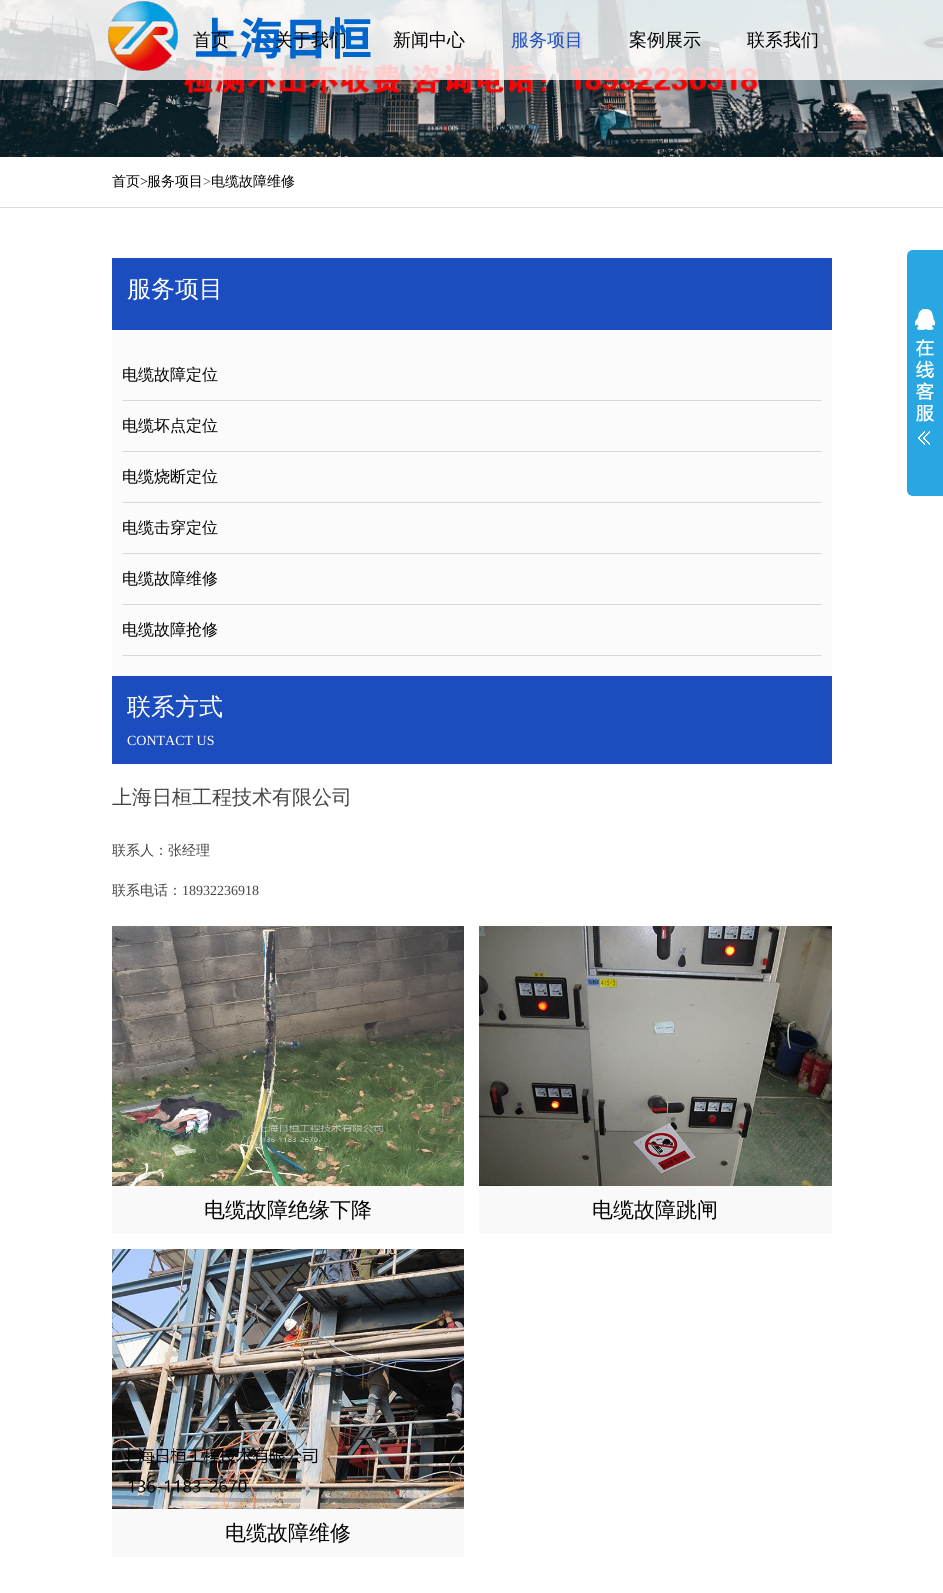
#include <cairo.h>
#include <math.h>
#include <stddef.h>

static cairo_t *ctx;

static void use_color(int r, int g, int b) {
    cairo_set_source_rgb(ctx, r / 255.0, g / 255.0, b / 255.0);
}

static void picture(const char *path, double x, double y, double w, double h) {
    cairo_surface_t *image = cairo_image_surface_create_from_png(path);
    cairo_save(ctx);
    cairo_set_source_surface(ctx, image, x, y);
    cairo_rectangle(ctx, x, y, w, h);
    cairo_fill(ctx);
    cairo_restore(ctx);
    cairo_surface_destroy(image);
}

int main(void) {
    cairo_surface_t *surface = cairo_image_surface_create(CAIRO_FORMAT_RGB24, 943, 1593);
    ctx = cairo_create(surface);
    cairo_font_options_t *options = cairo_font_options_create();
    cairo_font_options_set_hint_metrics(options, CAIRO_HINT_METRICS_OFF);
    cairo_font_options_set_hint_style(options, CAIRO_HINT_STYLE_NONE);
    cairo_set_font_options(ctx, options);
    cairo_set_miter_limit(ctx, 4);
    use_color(255, 255, 255);
    cairo_paint(ctx);
    picture("img1.png", 0, 0, 943, 157);
    cairo_set_source_rgba(ctx, 1, 1, 1, 0.8);
    cairo_rectangle(ctx, 0, 0, 943, 80);
    cairo_fill(ctx);
    picture("img2.png", 108, 1, 263, 70);
    cairo_select_font_face(ctx, "WenQuanYi Zen Hei Medium", CAIRO_FONT_SLANT_NORMAL, CAIRO_FONT_WEIGHT_NORMAL);
    cairo_set_font_size(ctx, 18);
    use_color(0, 0, 0);
    cairo_move_to(ctx, 193, 46);
    cairo_show_text(ctx, "首页");
    cairo_move_to(ctx, 275, 46);
    cairo_show_text(ctx, "关于我们");
    cairo_move_to(ctx, 393, 46);
    cairo_show_text(ctx, "新闻中心");
    use_color(28, 77, 190);
    cairo_move_to(ctx, 511, 46);
    cairo_show_text(ctx, "服务项目");
    use_color(0, 0, 0);
    cairo_move_to(ctx, 629, 46);
    cairo_show_text(ctx, "案例展示");
    cairo_move_to(ctx, 747, 46);
    cairo_show_text(ctx, "联系我们");
    use_color(218, 218, 218);
    cairo_rectangle(ctx, 0, 207, 943, 1);
    cairo_fill(ctx);
    cairo_set_font_size(ctx, 14);
    use_color(0, 0, 0);
    cairo_move_to(ctx, 112, 186);
    cairo_show_text(ctx, "首页");
    cairo_select_font_face(ctx, "Liberation Serif", CAIRO_FONT_SLANT_NORMAL, CAIRO_FONT_WEIGHT_NORMAL);
    cairo_move_to(ctx, 140, 186);
    cairo_show_text(ctx, ">");
    cairo_select_font_face(ctx, "WenQuanYi Zen Hei Medium", CAIRO_FONT_SLANT_NORMAL, CAIRO_FONT_WEIGHT_NORMAL);
    cairo_move_to(ctx, 147, 186);
    cairo_show_text(ctx, "服务项目");
    cairo_select_font_face(ctx, "Liberation Serif", CAIRO_FONT_SLANT_NORMAL, CAIRO_FONT_WEIGHT_NORMAL);
    use_color(68, 68, 68);
    cairo_move_to(ctx, 203, 186);
    cairo_show_text(ctx, ">");
    cairo_select_font_face(ctx, "WenQuanYi Zen Hei Medium", CAIRO_FONT_SLANT_NORMAL, CAIRO_FONT_WEIGHT_NORMAL);
    use_color(0, 0, 0);
    cairo_move_to(ctx, 211, 186);
    cairo_show_text(ctx, "电缆故障维修");
    use_color(28, 77, 190);
    cairo_rectangle(ctx, 112, 258, 720, 72);
    cairo_fill(ctx);
    cairo_set_font_size(ctx, 24);
    use_color(255, 255, 255);
    cairo_move_to(ctx, 127, 297);
    cairo_show_text(ctx, "服务项目");
    use_color(251, 251, 251);
    cairo_rectangle(ctx, 112, 330, 720, 346);
    cairo_fill(ctx);
    use_color(218, 218, 218);
    cairo_rectangle(ctx, 122, 400, 700, 1);
    cairo_fill(ctx);
    cairo_set_font_size(ctx, 16);
    use_color(0, 0, 0);
    cairo_move_to(ctx, 122, 380);
    cairo_show_text(ctx, "电缆故障定位");
    use_color(218, 218, 218);
    cairo_rectangle(ctx, 122, 451, 700, 1);
    cairo_fill(ctx);
    use_color(0, 0, 0);
    cairo_move_to(ctx, 122, 431);
    cairo_show_text(ctx, "电缆坏点定位");
    use_color(218, 218, 218);
    cairo_rectangle(ctx, 122, 502, 700, 1);
    cairo_fill(ctx);
    use_color(0, 0, 0);
    cairo_move_to(ctx, 122, 482);
    cairo_show_text(ctx, "电缆烧断定位");
    use_color(218, 218, 218);
    cairo_rectangle(ctx, 122, 553, 700, 1);
    cairo_fill(ctx);
    use_color(0, 0, 0);
    cairo_move_to(ctx, 122, 533);
    cairo_show_text(ctx, "电缆击穿定位");
    use_color(218, 218, 218);
    cairo_rectangle(ctx, 122, 604, 700, 1);
    cairo_fill(ctx);
    use_color(0, 0, 0);
    cairo_move_to(ctx, 122, 584);
    cairo_show_text(ctx, "电缆故障维修");
    use_color(218, 218, 218);
    cairo_rectangle(ctx, 122, 655, 700, 1);
    cairo_fill(ctx);
    use_color(0, 0, 0);
    cairo_move_to(ctx, 122, 635);
    cairo_show_text(ctx, "电缆故障抢修");
    use_color(28, 77, 190);
    cairo_rectangle(ctx, 112, 676, 720, 88);
    cairo_fill(ctx);
    cairo_set_font_size(ctx, 24);
    use_color(255, 255, 255);
    cairo_move_to(ctx, 127, 715);
    cairo_show_text(ctx, "联系方式");
    cairo_select_font_face(ctx, "Liberation Serif", CAIRO_FONT_SLANT_NORMAL, CAIRO_FONT_WEIGHT_NORMAL);
    cairo_set_font_size(ctx, 14);
    cairo_move_to(ctx, 127, 745);
    cairo_show_text(ctx, "CONTACT US");
    cairo_select_font_face(ctx, "WenQuanYi Zen Hei Medium", CAIRO_FONT_SLANT_NORMAL, CAIRO_FONT_WEIGHT_NORMAL);
    cairo_set_font_size(ctx, 20);
    use_color(68, 68, 68);
    cairo_move_to(ctx, 112, 804);
    cairo_show_text(ctx, "上海日桓工程技术有限公司");
    cairo_set_font_size(ctx, 14);
    cairo_move_to(ctx, 112, 855);
    cairo_show_text(ctx, "联系人：张经理");
    cairo_move_to(ctx, 112, 895);
    cairo_show_text(ctx, "联系电话：");
    cairo_select_font_face(ctx, "Liberation Serif", CAIRO_FONT_SLANT_NORMAL, CAIRO_FONT_WEIGHT_NORMAL);
    cairo_move_to(ctx, 182, 895);
    cairo_show_text(ctx, "18932236918");
    picture("img3.png", 112, 926, 352, 260);
    use_color(249, 249, 249);
    cairo_rectangle(ctx, 112, 1186, 352, 48);
    cairo_fill(ctx);
    cairo_select_font_face(ctx, "WenQuanYi Zen Hei Medium", CAIRO_FONT_SLANT_NORMAL, CAIRO_FONT_WEIGHT_NORMAL);
    cairo_set_font_size(ctx, 21);
    use_color(0, 0, 0);
    cairo_move_to(ctx, 204, 1217);
    cairo_show_text(ctx, "电缆故障绝缘下降");
    picture("img4.png", 479, 926, 353, 260);
    use_color(249, 249, 249);
    cairo_rectangle(ctx, 479, 1186, 353, 48);
    cairo_fill(ctx);
    use_color(0, 0, 0);
    cairo_move_to(ctx, 592, 1217);
    cairo_show_text(ctx, "电缆故障跳闸");
    picture("img5.png", 112, 1249, 352, 260);
    use_color(249, 249, 249);
    cairo_rectangle(ctx, 112, 1509, 352, 48);
    cairo_fill(ctx);
    use_color(0, 0, 0);
    cairo_move_to(ctx, 225, 1540);
    cairo_show_text(ctx, "电缆故障维修");
    use_color(41, 167, 226);
    cairo_new_path(ctx);
    cairo_move_to(ctx, 913, 250);
    cairo_line_to(ctx, 943, 250);
    cairo_line_to(ctx, 943, 496);
    cairo_line_to(ctx, 913, 496);
    cairo_curve_to(ctx, 909.5, 496, 907, 493.5, 907, 490);
    cairo_line_to(ctx, 907, 256);
    cairo_curve_to(ctx, 907, 252.5, 909.5, 250, 913, 250);
    cairo_close_path(ctx);
    cairo_fill(ctx);
    picture("img6.png", 915, 309, 20, 136);
    cairo_surface_write_to_png(surface, "result.png");
    cairo_font_options_destroy(options);
    cairo_destroy(ctx);
    cairo_surface_destroy(surface);
    return 0;
}
